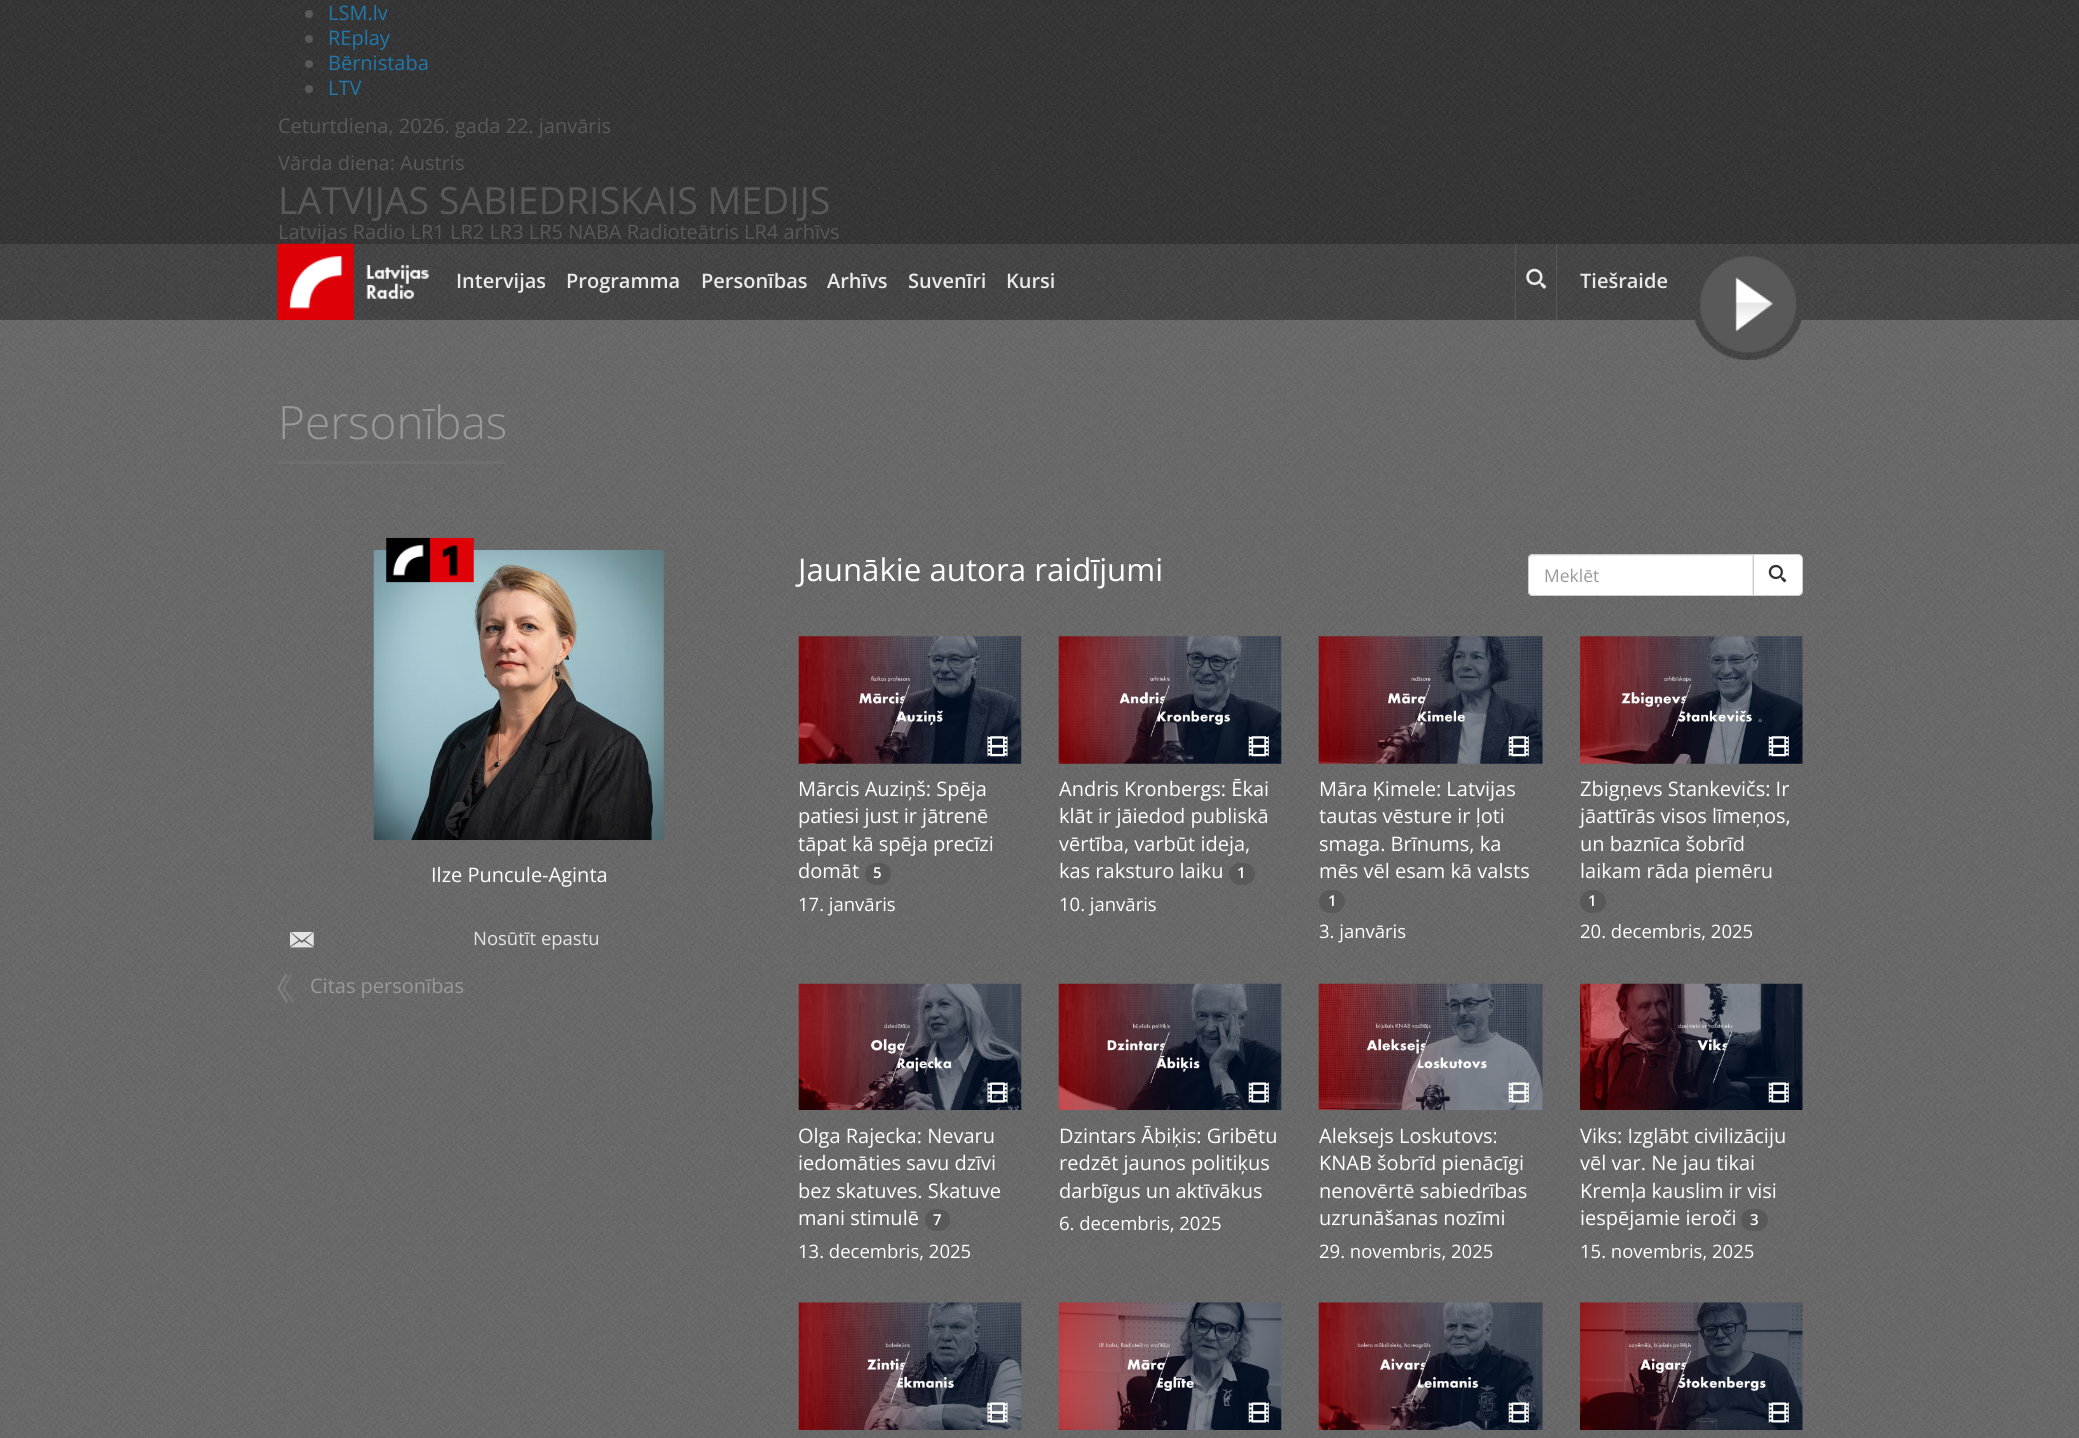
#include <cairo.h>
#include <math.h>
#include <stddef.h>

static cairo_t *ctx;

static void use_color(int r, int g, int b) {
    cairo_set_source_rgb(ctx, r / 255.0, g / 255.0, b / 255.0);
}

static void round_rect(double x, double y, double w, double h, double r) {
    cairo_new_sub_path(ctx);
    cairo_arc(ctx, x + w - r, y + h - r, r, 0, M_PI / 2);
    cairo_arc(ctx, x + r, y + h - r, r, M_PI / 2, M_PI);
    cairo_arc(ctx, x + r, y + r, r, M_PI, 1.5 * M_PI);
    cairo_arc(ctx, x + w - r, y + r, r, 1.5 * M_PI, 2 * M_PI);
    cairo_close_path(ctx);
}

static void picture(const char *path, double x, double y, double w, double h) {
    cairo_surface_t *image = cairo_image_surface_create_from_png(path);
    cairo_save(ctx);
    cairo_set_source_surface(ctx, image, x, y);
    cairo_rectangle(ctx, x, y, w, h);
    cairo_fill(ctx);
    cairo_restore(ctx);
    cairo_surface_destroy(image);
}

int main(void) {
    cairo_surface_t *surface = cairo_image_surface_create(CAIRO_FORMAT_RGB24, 2079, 1438);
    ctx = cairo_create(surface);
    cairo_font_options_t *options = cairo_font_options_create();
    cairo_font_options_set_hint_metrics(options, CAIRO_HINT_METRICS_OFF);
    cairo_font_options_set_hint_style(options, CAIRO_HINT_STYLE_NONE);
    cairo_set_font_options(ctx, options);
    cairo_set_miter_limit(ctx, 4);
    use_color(255, 255, 255);
    cairo_paint(ctx);
    picture("img1.png", 0, 0, 2079, 244);
    use_color(89, 89, 89);
    cairo_arc(ctx, 309, 14, 4, 0, 2 * M_PI);
    cairo_fill(ctx);
    cairo_select_font_face(ctx, "Open Sans", CAIRO_FONT_SLANT_NORMAL, CAIRO_FONT_WEIGHT_NORMAL);
    cairo_set_font_size(ctx, 20);
    use_color(32, 120, 172);
    cairo_move_to(ctx, 328, 20);
    cairo_show_text(ctx, "LSM.lv");
    use_color(89, 89, 89);
    cairo_new_path(ctx);
    cairo_arc(ctx, 309, 39, 4, 0, 2 * M_PI);
    cairo_fill(ctx);
    use_color(32, 120, 172);
    cairo_move_to(ctx, 328, 45);
    cairo_show_text(ctx, "REplay");
    use_color(89, 89, 89);
    cairo_new_path(ctx);
    cairo_arc(ctx, 309, 64, 4, 0, 2 * M_PI);
    cairo_fill(ctx);
    use_color(32, 120, 172);
    cairo_move_to(ctx, 328, 70);
    cairo_show_text(ctx, "Bērnistaba");
    use_color(89, 89, 89);
    cairo_new_path(ctx);
    cairo_arc(ctx, 309, 89, 4, 0, 2 * M_PI);
    cairo_fill(ctx);
    use_color(32, 120, 172);
    cairo_move_to(ctx, 328, 95);
    cairo_show_text(ctx, "LTV");
    use_color(89, 89, 89);
    cairo_move_to(ctx, 278, 133);
    cairo_show_text(ctx, "Ceturtdiena, 2026. gada 22. janvāris");
    cairo_move_to(ctx, 278, 170);
    cairo_show_text(ctx, "Vārda diena: Austris");
    cairo_set_font_size(ctx, 37.5);
    cairo_move_to(ctx, 278, 214);
    cairo_show_text(ctx, "LATVIJAS SABIEDRISKAIS MEDIJS");
    cairo_set_font_size(ctx, 20);
    cairo_move_to(ctx, 278, 239);
    cairo_show_text(ctx, "Latvijas Radio LR1 LR2 LR3 LR5 NABA Radioteātris LR4 arhīvs");
    picture("img2.png", 0, 243, 2079, 77);
    picture("img3.png", 277, 243, 152, 77);
    cairo_select_font_face(ctx, "Open Sans SemiBold", CAIRO_FONT_SLANT_NORMAL, CAIRO_FONT_WEIGHT_NORMAL);
    use_color(234, 234, 234);
    cairo_move_to(ctx, 456, 288);
    cairo_show_text(ctx, "Intervijas");
    cairo_move_to(ctx, 566, 288);
    cairo_show_text(ctx, "Programma");
    cairo_move_to(ctx, 701, 288);
    cairo_show_text(ctx, "Personības");
    cairo_move_to(ctx, 827, 288);
    cairo_show_text(ctx, "Arhīvs");
    cairo_move_to(ctx, 908, 288);
    cairo_show_text(ctx, "Suvenīri");
    cairo_move_to(ctx, 1006, 288);
    cairo_show_text(ctx, "Kursi");
    picture("img6.png", 0, 320, 2079, 1118);
    use_color(88, 88, 88);
    cairo_rectangle(ctx, 1556, 244, 1, 77);
    cairo_fill(ctx);
    cairo_rectangle(ctx, 1515, 244, 1, 77);
    cairo_fill(ctx);
    picture("img4.png", 1526, 268, 21, 21);
    use_color(234, 234, 234);
    cairo_move_to(ctx, 1580, 288);
    cairo_show_text(ctx, "Tiešraide");
    picture("img5.png", 1694, 256, 108, 104);
    use_color(111, 111, 111);
    cairo_rectangle(ctx, 278, 461, 228, 3);
    cairo_fill(ctx);
    cairo_select_font_face(ctx, "Open Sans Light", CAIRO_FONT_SLANT_NORMAL, CAIRO_FONT_WEIGHT_NORMAL);
    cairo_set_font_size(ctx, 46);
    use_color(153, 153, 153);
    cairo_move_to(ctx, 278, 439);
    cairo_show_text(ctx, "Personības");
    picture("img8.png", 373, 550, 291, 290);
    picture("img7.png", 386, 537, 88, 46);
    cairo_select_font_face(ctx, "Open Sans", CAIRO_FONT_SLANT_NORMAL, CAIRO_FONT_WEIGHT_NORMAL);
    cairo_set_font_size(ctx, 20);
    use_color(255, 255, 255);
    cairo_move_to(ctx, 431, 882);
    cairo_show_text(ctx, "Ilze Puncule-Aginta");
    picture("img9.png", 290, 932, 24, 16);
    cairo_set_font_size(ctx, 18.5);
    use_color(227, 227, 227);
    cairo_move_to(ctx, 473, 945);
    cairo_show_text(ctx, "Nosūtīt epastu");
    picture("img10.png", 277, 973, 17, 30);
    cairo_set_font_size(ctx, 20);
    use_color(153, 153, 153);
    cairo_move_to(ctx, 310, 993);
    cairo_show_text(ctx, "Citas personības");
    cairo_set_font_size(ctx, 31.25);
    use_color(255, 255, 255);
    cairo_move_to(ctx, 798, 581);
    cairo_show_text(ctx, "Jaunākie autora raidījumi");
    cairo_new_path(ctx);
    cairo_move_to(ctx, 1753.5, 554.5);
    cairo_line_to(ctx, 1798, 554.5);
    cairo_curve_to(ctx, 1800.5, 554.5, 1802.5, 556.5, 1802.5, 559);
    cairo_line_to(ctx, 1802.5, 591);
    cairo_curve_to(ctx, 1802.5, 593.5, 1800.5, 595.5, 1798, 595.5);
    cairo_line_to(ctx, 1753.5, 595.5);
    cairo_close_path(ctx);
    cairo_fill_preserve(ctx);
    use_color(204, 204, 204);
    cairo_set_line_width(ctx, 1);
    cairo_stroke(ctx);
    use_color(255, 255, 255);
    cairo_new_path(ctx);
    cairo_move_to(ctx, 1533, 554);
    cairo_line_to(ctx, 1754, 554);
    cairo_line_to(ctx, 1754, 596);
    cairo_line_to(ctx, 1533, 596);
    cairo_curve_to(ctx, 1530, 596, 1528, 594, 1528, 591);
    cairo_line_to(ctx, 1528, 559);
    cairo_curve_to(ctx, 1528, 556, 1530, 554, 1533, 554);
    cairo_close_path(ctx);
    cairo_fill(ctx);
    use_color(236, 236, 236);
    cairo_new_path(ctx);
    cairo_move_to(ctx, 1532, 556);
    cairo_line_to(ctx, 1752, 556);
    cairo_line_to(ctx, 1752, 595);
    cairo_line_to(ctx, 1753, 595);
    cairo_line_to(ctx, 1753, 555);
    cairo_line_to(ctx, 1533, 555);
    cairo_curve_to(ctx, 1530, 555, 1529, 557, 1529, 560);
    cairo_curve_to(ctx, 1529, 558, 1530, 556, 1532, 556);
    cairo_close_path(ctx);
    cairo_fill(ctx);
    cairo_new_path(ctx);
    cairo_move_to(ctx, 1533, 554.5);
    cairo_line_to(ctx, 1753.5, 554.5);
    cairo_line_to(ctx, 1753.5, 595.5);
    cairo_line_to(ctx, 1533, 595.5);
    cairo_curve_to(ctx, 1530.5, 595.5, 1528.5, 593.5, 1528.5, 591);
    cairo_line_to(ctx, 1528.5, 559);
    cairo_curve_to(ctx, 1528.5, 556.5, 1530.5, 554.5, 1533, 554.5);
    cairo_close_path(ctx);
    use_color(204, 204, 204);
    cairo_stroke(ctx);
    cairo_set_font_size(ctx, 17.5);
    use_color(153, 153, 153);
    cairo_move_to(ctx, 1544, 582);
    cairo_show_text(ctx, "Meklēt");
    picture("img11.png", 1768, 564, 19, 19);
    picture("img12.png", 798, 636, 224, 128);
    picture("img13.png", 987, 736, 21, 21);
    cairo_set_font_size(ctx, 20);
    use_color(255, 255, 255);
    cairo_move_to(ctx, 798, 796);
    cairo_show_text(ctx, "Mārcis Auziņš: Spēja");
    cairo_move_to(ctx, 798, 823);
    cairo_show_text(ctx, "patiesi just ir jātrenē");
    cairo_move_to(ctx, 798, 851);
    cairo_show_text(ctx, "tāpat kā spēja precīzi");
    cairo_move_to(ctx, 798, 878);
    cairo_show_text(ctx, "domāt");
    use_color(89, 89, 89);
    round_rect(865, 863, 26, 22, 11);
    cairo_fill(ctx);
    cairo_select_font_face(ctx, "Open Sans SemiBold", CAIRO_FONT_SLANT_NORMAL, CAIRO_FONT_WEIGHT_NORMAL);
    cairo_set_font_size(ctx, 15);
    use_color(255, 255, 255);
    cairo_move_to(ctx, 873, 878);
    cairo_show_text(ctx, "5");
    cairo_select_font_face(ctx, "Open Sans", CAIRO_FONT_SLANT_NORMAL, CAIRO_FONT_WEIGHT_NORMAL);
    cairo_set_font_size(ctx, 18.5);
    cairo_move_to(ctx, 798, 911);
    cairo_show_text(ctx, "17. janvāris");
    picture("img14.png", 1058, 636, 224, 128);
    picture("img15.png", 1248, 736, 21, 21);
    cairo_set_font_size(ctx, 20);
    cairo_move_to(ctx, 1059, 796);
    cairo_show_text(ctx, "Andris Kronbergs: Ēkai");
    cairo_move_to(ctx, 1059, 823);
    cairo_show_text(ctx, "klāt ir jāiedod publiskā");
    cairo_move_to(ctx, 1059, 851);
    cairo_show_text(ctx, "vērtība, varbūt ideja,");
    cairo_move_to(ctx, 1059, 878);
    cairo_show_text(ctx, "kas raksturo laiku");
    use_color(89, 89, 89);
    round_rect(1229, 863, 26, 22, 11);
    cairo_fill(ctx);
    cairo_select_font_face(ctx, "Open Sans SemiBold", CAIRO_FONT_SLANT_NORMAL, CAIRO_FONT_WEIGHT_NORMAL);
    cairo_set_font_size(ctx, 15);
    use_color(255, 255, 255);
    cairo_move_to(ctx, 1237, 878);
    cairo_show_text(ctx, "1");
    cairo_select_font_face(ctx, "Open Sans", CAIRO_FONT_SLANT_NORMAL, CAIRO_FONT_WEIGHT_NORMAL);
    cairo_set_font_size(ctx, 18.5);
    cairo_move_to(ctx, 1059, 911);
    cairo_show_text(ctx, "10. janvāris");
    picture("img16.png", 1318, 636, 225, 128);
    picture("img17.png", 1508, 736, 21, 21);
    cairo_set_font_size(ctx, 20);
    cairo_move_to(ctx, 1319, 796);
    cairo_show_text(ctx, "Māra Ķimele: Latvijas");
    cairo_move_to(ctx, 1319, 823);
    cairo_show_text(ctx, "tautas vēsture ir ļoti");
    cairo_move_to(ctx, 1319, 851);
    cairo_show_text(ctx, "smaga. Brīnums, ka");
    cairo_move_to(ctx, 1319, 878);
    cairo_show_text(ctx, "mēs vēl esam kā valsts");
    use_color(89, 89, 89);
    round_rect(1319, 890, 26, 23, 11.5);
    cairo_fill(ctx);
    cairo_select_font_face(ctx, "Open Sans SemiBold", CAIRO_FONT_SLANT_NORMAL, CAIRO_FONT_WEIGHT_NORMAL);
    cairo_set_font_size(ctx, 15);
    use_color(255, 255, 255);
    cairo_move_to(ctx, 1328, 906);
    cairo_show_text(ctx, "1");
    cairo_select_font_face(ctx, "Open Sans", CAIRO_FONT_SLANT_NORMAL, CAIRO_FONT_WEIGHT_NORMAL);
    cairo_set_font_size(ctx, 18.5);
    cairo_move_to(ctx, 1319, 938);
    cairo_show_text(ctx, "3. janvāris");
    picture("img18.png", 1580, 636, 223, 128);
    picture("img19.png", 1768, 736, 21, 21);
    cairo_set_font_size(ctx, 20);
    cairo_move_to(ctx, 1580, 796);
    cairo_show_text(ctx, "Zbigņevs Stankevičs: Ir");
    cairo_move_to(ctx, 1580, 823);
    cairo_show_text(ctx, "jāattīrās visos līmeņos,");
    cairo_move_to(ctx, 1580, 851);
    cairo_show_text(ctx, "un baznīca šobrīd");
    cairo_move_to(ctx, 1580, 878);
    cairo_show_text(ctx, "laikam rāda piemēru");
    use_color(89, 89, 89);
    round_rect(1580, 890, 26, 23, 11.5);
    cairo_fill(ctx);
    cairo_select_font_face(ctx, "Open Sans SemiBold", CAIRO_FONT_SLANT_NORMAL, CAIRO_FONT_WEIGHT_NORMAL);
    cairo_set_font_size(ctx, 15);
    use_color(255, 255, 255);
    cairo_move_to(ctx, 1588, 906);
    cairo_show_text(ctx, "1");
    cairo_select_font_face(ctx, "Open Sans", CAIRO_FONT_SLANT_NORMAL, CAIRO_FONT_WEIGHT_NORMAL);
    cairo_set_font_size(ctx, 18.5);
    cairo_move_to(ctx, 1580, 938);
    cairo_show_text(ctx, "20. decembris, 2025");
    picture("img20.png", 798, 983, 224, 127);
    picture("img21.png", 987, 1082, 21, 21);
    cairo_set_font_size(ctx, 20);
    cairo_move_to(ctx, 798, 1143);
    cairo_show_text(ctx, "Olga Rajecka: Nevaru");
    cairo_move_to(ctx, 798, 1170);
    cairo_show_text(ctx, "iedomāties savu dzīvi");
    cairo_move_to(ctx, 798, 1198);
    cairo_show_text(ctx, "bez skatuves. Skatuve");
    cairo_move_to(ctx, 798, 1225);
    cairo_show_text(ctx, "mani stimulē");
    use_color(89, 89, 89);
    round_rect(925, 1209, 25, 22, 11);
    cairo_fill(ctx);
    cairo_select_font_face(ctx, "Open Sans SemiBold", CAIRO_FONT_SLANT_NORMAL, CAIRO_FONT_WEIGHT_NORMAL);
    cairo_set_font_size(ctx, 15);
    use_color(255, 255, 255);
    cairo_move_to(ctx, 933, 1225);
    cairo_show_text(ctx, "7");
    cairo_select_font_face(ctx, "Open Sans", CAIRO_FONT_SLANT_NORMAL, CAIRO_FONT_WEIGHT_NORMAL);
    cairo_set_font_size(ctx, 18.5);
    cairo_move_to(ctx, 798, 1258);
    cairo_show_text(ctx, "13. decembris, 2025");
    picture("img22.png", 1058, 983, 224, 127);
    picture("img23.png", 1248, 1082, 21, 21);
    cairo_set_font_size(ctx, 20);
    cairo_move_to(ctx, 1059, 1143);
    cairo_show_text(ctx, "Dzintars Ābiķis: Gribētu");
    cairo_move_to(ctx, 1059, 1170);
    cairo_show_text(ctx, "redzēt jaunos politiķus");
    cairo_move_to(ctx, 1059, 1198);
    cairo_show_text(ctx, "darbīgus un aktīvākus");
    cairo_set_font_size(ctx, 18.5);
    cairo_move_to(ctx, 1059, 1230);
    cairo_show_text(ctx, "6. decembris, 2025");
    picture("img24.png", 1318, 983, 225, 127);
    picture("img25.png", 1508, 1082, 21, 21);
    cairo_set_font_size(ctx, 20);
    cairo_move_to(ctx, 1319, 1143);
    cairo_show_text(ctx, "Aleksejs Loskutovs:");
    cairo_move_to(ctx, 1319, 1170);
    cairo_show_text(ctx, "KNAB šobrīd pienācīgi");
    cairo_move_to(ctx, 1319, 1198);
    cairo_show_text(ctx, "nenovērtē sabiedrības");
    cairo_move_to(ctx, 1319, 1225);
    cairo_show_text(ctx, "uzrunāšanas nozīmi");
    cairo_set_font_size(ctx, 18.5);
    cairo_move_to(ctx, 1319, 1258);
    cairo_show_text(ctx, "29. novembris, 2025");
    picture("img26.png", 1580, 983, 223, 127);
    picture("img27.png", 1768, 1082, 21, 21);
    cairo_set_font_size(ctx, 20);
    cairo_move_to(ctx, 1580, 1143);
    cairo_show_text(ctx, "Viks: Izglābt civilizāciju");
    cairo_move_to(ctx, 1580, 1170);
    cairo_show_text(ctx, "vēl var. Ne jau tikai");
    cairo_move_to(ctx, 1580, 1198);
    cairo_show_text(ctx, "Kremļa kauslim ir visi");
    cairo_move_to(ctx, 1580, 1225);
    cairo_show_text(ctx, "iespējamie ieroči");
    use_color(89, 89, 89);
    round_rect(1741, 1209, 27, 22, 11);
    cairo_fill(ctx);
    cairo_select_font_face(ctx, "Open Sans SemiBold", CAIRO_FONT_SLANT_NORMAL, CAIRO_FONT_WEIGHT_NORMAL);
    cairo_set_font_size(ctx, 15);
    use_color(255, 255, 255);
    cairo_move_to(ctx, 1750, 1225);
    cairo_show_text(ctx, "3");
    cairo_select_font_face(ctx, "Open Sans", CAIRO_FONT_SLANT_NORMAL, CAIRO_FONT_WEIGHT_NORMAL);
    cairo_set_font_size(ctx, 18.5);
    cairo_move_to(ctx, 1580, 1258);
    cairo_show_text(ctx, "15. novembris, 2025");
    picture("img28.png", 798, 1302, 224, 128);
    picture("img29.png", 987, 1402, 21, 21);
    picture("img30.png", 1058, 1302, 224, 128);
    picture("img31.png", 1248, 1402, 21, 21);
    picture("img32.png", 1318, 1302, 225, 128);
    picture("img33.png", 1508, 1402, 21, 21);
    picture("img34.png", 1580, 1302, 223, 128);
    picture("img35.png", 1768, 1402, 21, 21);
    cairo_surface_write_to_png(surface, "result.png");
    cairo_font_options_destroy(options);
    cairo_destroy(ctx);
    cairo_surface_destroy(surface);
    return 0;
}
